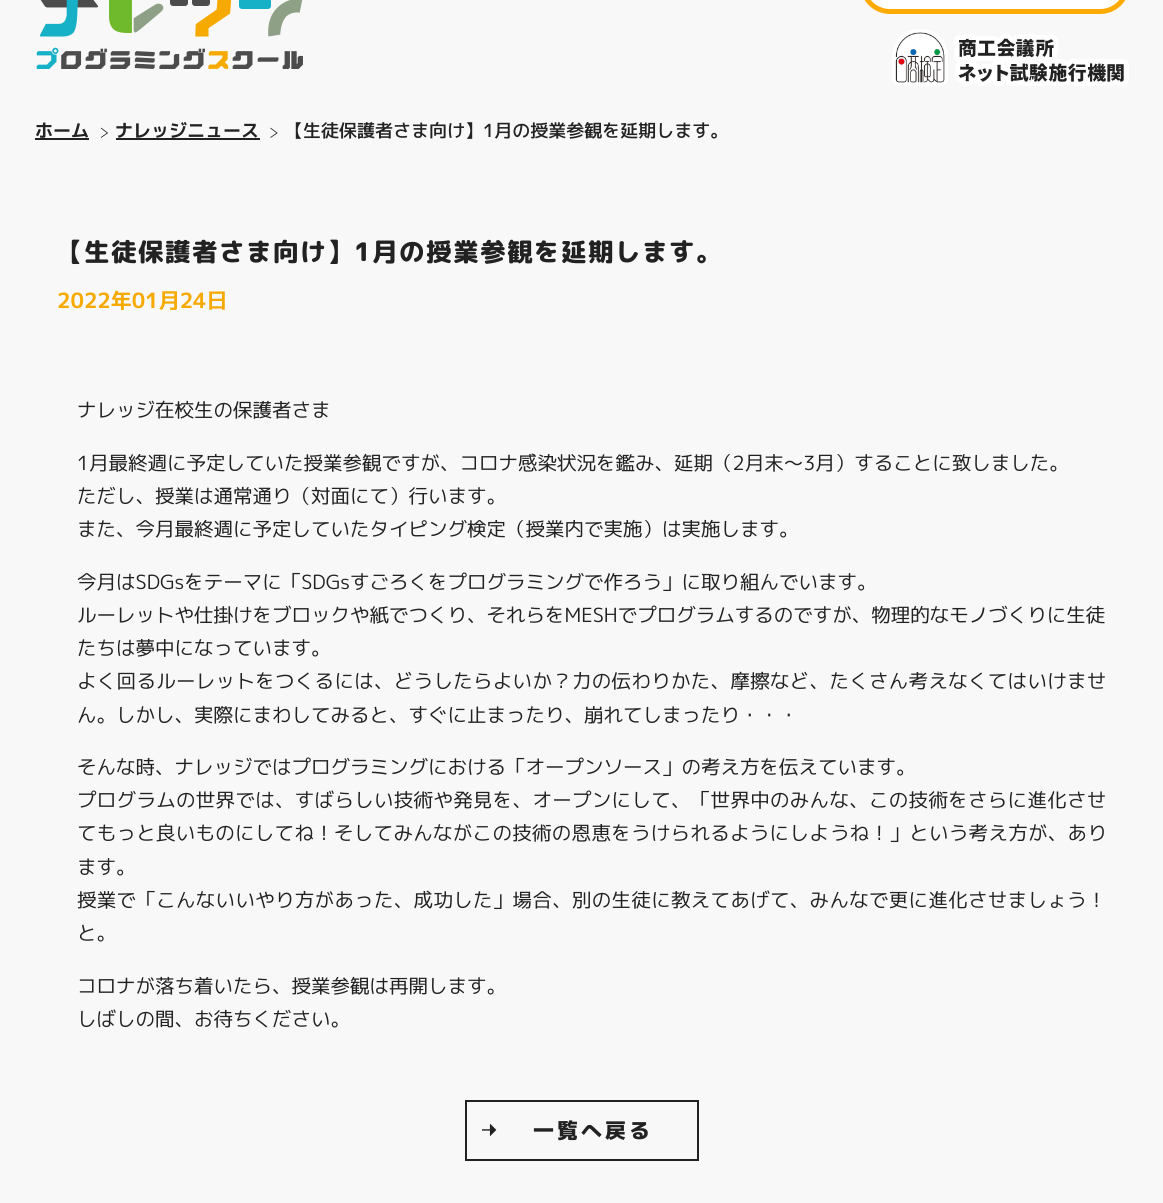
#include <cairo.h>
#include <math.h>
#include <stddef.h>

static cairo_t *ctx;

static void use_color(int r, int g, int b) {
    cairo_set_source_rgb(ctx, r / 255.0, g / 255.0, b / 255.0);
}

static void spaced_text(double x, double y, const char *s, double letter, double word) {
    cairo_move_to(ctx, x, y);
    while (*s) {
        char ch[5] = {0};
        int n = 0;
        do ch[n++] = *s++; while ((*s & 0xC0) == 0x80);
        cairo_show_text(ctx, ch);
        cairo_rel_move_to(ctx, letter + word * (*ch == ' '), 0);
    }
}

static void round_rect(double x, double y, double w, double h, double r) {
    cairo_new_sub_path(ctx);
    cairo_arc(ctx, x + w - r, y + h - r, r, 0, M_PI / 2);
    cairo_arc(ctx, x + r, y + h - r, r, M_PI / 2, M_PI);
    cairo_arc(ctx, x + r, y + r, r, M_PI, 1.5 * M_PI);
    cairo_arc(ctx, x + w - r, y + r, r, 1.5 * M_PI, 2 * M_PI);
    cairo_close_path(ctx);
}

static void picture(const char *path, double x, double y, double w, double h) {
    cairo_surface_t *image = cairo_image_surface_create_from_png(path);
    cairo_save(ctx);
    cairo_set_source_surface(ctx, image, x, y);
    cairo_rectangle(ctx, x, y, w, h);
    cairo_fill(ctx);
    cairo_restore(ctx);
    cairo_surface_destroy(image);
}

int main(void) {
    cairo_surface_t *surface = cairo_image_surface_create(CAIRO_FORMAT_RGB24, 1163, 1203);
    ctx = cairo_create(surface);
    cairo_font_options_t *options = cairo_font_options_create();
    cairo_font_options_set_hint_metrics(options, CAIRO_HINT_METRICS_OFF);
    cairo_font_options_set_hint_style(options, CAIRO_HINT_STYLE_NONE);
    cairo_set_font_options(ctx, options);
    cairo_set_miter_limit(ctx, 4);
    use_color(248, 248, 248);
    cairo_paint(ctx);
    picture("img1.png", 36, 0, 267, 69);
    use_color(255, 255, 255);
    round_rect(862.5, -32.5, 265, 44, 27.5);
    cairo_fill_preserve(ctx);
    use_color(255, 170, 0);
    cairo_set_line_width(ctx, 5);
    cairo_stroke(ctx);
    picture("img2.png", 892, 29, 237, 57);
    cairo_select_font_face(ctx, "M PLUS 1p", CAIRO_FONT_SLANT_NORMAL, CAIRO_FONT_WEIGHT_BOLD);
    cairo_set_font_size(ctx, 18);
    use_color(34, 34, 34);
    cairo_move_to(ctx, 35, 137);
    cairo_show_text(ctx, "ホーム");
    cairo_rectangle(ctx, 35, 138, 54, 2);
    cairo_fill(ctx);
    cairo_new_path(ctx);
    cairo_move_to(ctx, 101, 128);
    cairo_line_to(ctx, 107.5, 133);
    cairo_line_to(ctx, 101, 137.5);
    cairo_set_line_width(ctx, 0.8);
    cairo_stroke(ctx);
    cairo_move_to(ctx, 115, 137);
    cairo_show_text(ctx, "ナレッジニュース");
    cairo_rectangle(ctx, 116, 138, 144, 2);
    cairo_fill(ctx);
    cairo_new_path(ctx);
    cairo_move_to(ctx, 270.5, 128);
    cairo_line_to(ctx, 277, 133);
    cairo_line_to(ctx, 270.5, 137.5);
    cairo_stroke(ctx);
    cairo_select_font_face(ctx, "M PLUS 1p Medium", CAIRO_FONT_SLANT_NORMAL, CAIRO_FONT_WEIGHT_NORMAL);
    cairo_move_to(ctx, 285, 137);
    cairo_show_text(ctx, "【生徒保護者さま向け】1月の授業参観を延期します。");
    cairo_select_font_face(ctx, "Rounded Mplus 1c ExtraBold", CAIRO_FONT_SLANT_NORMAL, CAIRO_FONT_WEIGHT_NORMAL);
    cairo_set_font_size(ctx, 25.5);
    spaced_text(57, 261, "【生徒保護者さま向け】1月の授業参観を延期します。", 1.5, 0);
    cairo_select_font_face(ctx, "M PLUS 1p", CAIRO_FONT_SLANT_NORMAL, CAIRO_FONT_WEIGHT_BOLD);
    cairo_set_font_size(ctx, 21);
    use_color(246, 170, 0);
    cairo_move_to(ctx, 57, 308);
    cairo_show_text(ctx, "2022年01月24日");
    cairo_select_font_face(ctx, "M PLUS 1p", CAIRO_FONT_SLANT_NORMAL, CAIRO_FONT_WEIGHT_NORMAL);
    cairo_set_font_size(ctx, 19.5);
    use_color(34, 34, 34);
    cairo_move_to(ctx, 77, 417);
    cairo_show_text(ctx, "ナレッジ在校生の保護者さま");
    cairo_move_to(ctx, 77, 470);
    cairo_show_text(ctx, "1月最終週に予定していた授業参観ですが、コロナ感染状況を鑑み、延期（2月末～3月）することに致しました。");
    cairo_move_to(ctx, 77, 503);
    cairo_show_text(ctx, "ただし、授業は通常通り（対面にて）行います。");
    cairo_move_to(ctx, 77, 536);
    cairo_show_text(ctx, "また、今月最終週に予定していたタイピング検定（授業内で実施）は実施します。");
    cairo_move_to(ctx, 77, 589);
    cairo_show_text(ctx, "今月はSDGsをテーマに「SDGsすごろくをプログラミングで作ろう」に取り組んでいます。");
    cairo_move_to(ctx, 77, 622);
    cairo_show_text(ctx, "ルーレットや仕掛けをブロックや紙でつくり、それらをMESHでプログラムするのですが、物理的なモノづくりに生徒");
    cairo_move_to(ctx, 77, 655);
    cairo_show_text(ctx, "たちは夢中になっています。");
    spaced_text(77, 688, "よく回るルーレットをつくるには、どうしたらよいか？力の伝わり", 0.3, 0);
    spaced_text(671, 688, "かた、摩擦など、たくさん考えなくてはいけませ", 0.3, 0);
    cairo_move_to(ctx, 77, 722);
    cairo_show_text(ctx, "ん。しかし、実際にまわしてみると、すぐに止まったり、崩れてしまったり・・・");
    cairo_move_to(ctx, 77, 774);
    cairo_show_text(ctx, "そんな時、ナレッジではプログラミングにおける「オープンソース」の考え方を伝えています。");
    spaced_text(77, 807, "プログラムの世界では、すばらしい技術や発見を、オープンにして", 0.3, 0);
    spaced_text(671, 807, "、「世界中のみんな、この技術をさらに進化させ", 0.3, 0);
    spaced_text(77, 840, "てもっと良いもの", 0.25, 0);
    spaced_text(235, 840, "にしてね！そしてみんながこの技術の恩恵をうけられるようにしよ", 0.3, 0);
    spaced_text(830, 840, "うね！」という考え方が、あり", 0.3, 0);
    cairo_move_to(ctx, 77, 874);
    cairo_show_text(ctx, "ます。");
    spaced_text(77, 907, "授業で「こんないいやり方があった、成功した」場合、別の生徒に", 0.3, 0);
    spaced_text(671, 907, "教えてあげて、みんなで更に進化させましょう！", 0.3, 0);
    cairo_move_to(ctx, 77, 940);
    cairo_show_text(ctx, "と。");
    cairo_move_to(ctx, 77, 993);
    cairo_show_text(ctx, "コロナが落ち着いたら、授業参観は再開します。");
    cairo_move_to(ctx, 77, 1026);
    cairo_show_text(ctx, "しばしの間、お待ちください。");
    picture("img3.png", 482, 1124, 15, 13);
    cairo_rectangle(ctx, 466, 1101, 232, 59);
    cairo_set_line_width(ctx, 2);
    cairo_stroke(ctx);
    cairo_select_font_face(ctx, "M PLUS 1p ExtraBold", CAIRO_FONT_SLANT_NORMAL, CAIRO_FONT_WEIGHT_NORMAL);
    cairo_set_font_size(ctx, 21);
    spaced_text(533, 1138, "一覧へ戻る", 3, 0);
    cairo_surface_write_to_png(surface, "result.png");
    cairo_font_options_destroy(options);
    cairo_destroy(ctx);
    cairo_surface_destroy(surface);
    return 0;
}
